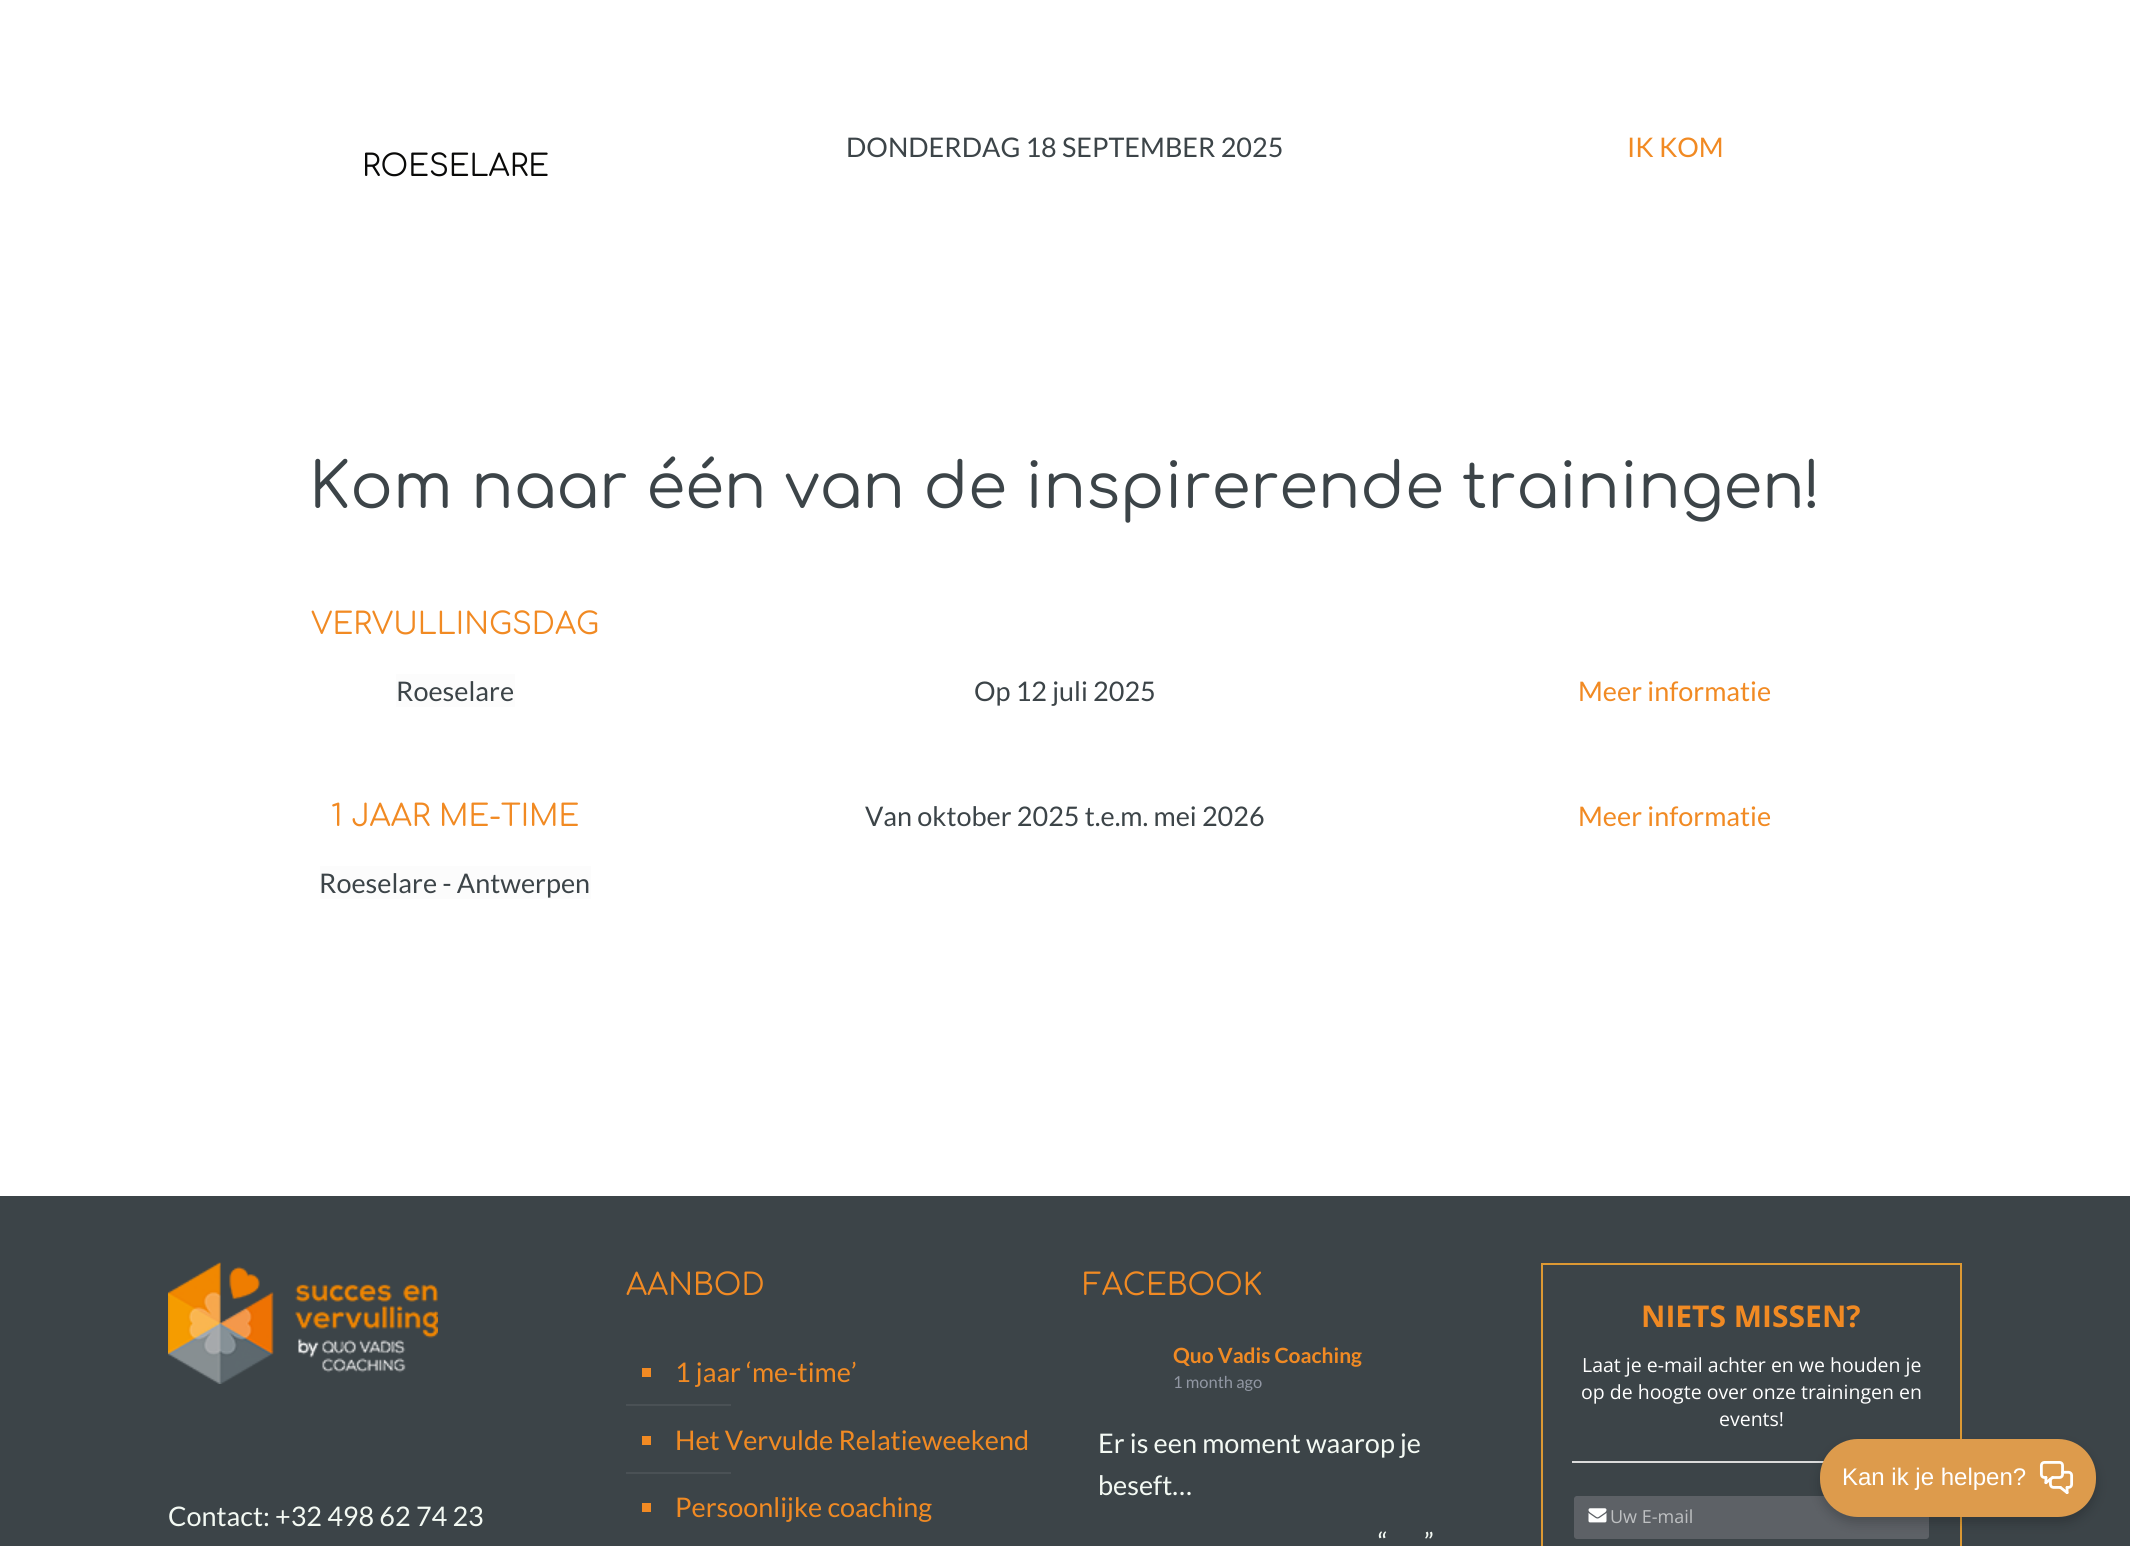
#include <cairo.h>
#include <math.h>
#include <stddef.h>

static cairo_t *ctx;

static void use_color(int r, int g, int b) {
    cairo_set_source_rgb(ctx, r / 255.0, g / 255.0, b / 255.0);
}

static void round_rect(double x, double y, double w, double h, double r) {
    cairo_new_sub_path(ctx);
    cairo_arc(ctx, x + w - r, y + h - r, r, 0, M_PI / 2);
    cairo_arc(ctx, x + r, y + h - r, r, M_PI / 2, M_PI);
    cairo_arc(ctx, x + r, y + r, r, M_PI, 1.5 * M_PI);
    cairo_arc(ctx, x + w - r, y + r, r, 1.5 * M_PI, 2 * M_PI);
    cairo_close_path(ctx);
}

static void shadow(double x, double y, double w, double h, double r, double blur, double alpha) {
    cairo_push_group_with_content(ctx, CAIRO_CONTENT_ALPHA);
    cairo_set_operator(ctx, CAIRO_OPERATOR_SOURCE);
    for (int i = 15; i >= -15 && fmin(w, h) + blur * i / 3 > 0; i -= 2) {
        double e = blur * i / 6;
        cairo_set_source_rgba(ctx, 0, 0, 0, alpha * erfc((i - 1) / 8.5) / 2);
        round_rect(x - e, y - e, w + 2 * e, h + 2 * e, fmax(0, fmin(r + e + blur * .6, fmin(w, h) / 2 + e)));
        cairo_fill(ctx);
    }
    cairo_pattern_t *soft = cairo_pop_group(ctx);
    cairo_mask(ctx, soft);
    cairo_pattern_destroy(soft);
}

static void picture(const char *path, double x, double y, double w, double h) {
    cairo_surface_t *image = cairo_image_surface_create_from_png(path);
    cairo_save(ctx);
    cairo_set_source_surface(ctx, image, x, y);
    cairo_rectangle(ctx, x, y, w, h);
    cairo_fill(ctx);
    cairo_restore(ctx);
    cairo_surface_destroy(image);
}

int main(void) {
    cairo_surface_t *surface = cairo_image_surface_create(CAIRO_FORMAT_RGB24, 2130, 1546);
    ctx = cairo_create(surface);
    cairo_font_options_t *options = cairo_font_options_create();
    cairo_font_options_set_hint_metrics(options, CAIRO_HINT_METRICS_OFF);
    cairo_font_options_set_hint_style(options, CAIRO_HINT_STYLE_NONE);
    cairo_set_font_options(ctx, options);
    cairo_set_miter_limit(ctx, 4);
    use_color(255, 255, 255);
    cairo_paint(ctx);
    cairo_select_font_face(ctx, "Lato", CAIRO_FONT_SLANT_NORMAL, CAIRO_FONT_WEIGHT_NORMAL);
    cairo_set_font_size(ctx, 27);
    use_color(60, 68, 72);
    cairo_move_to(ctx, 846, 157);
    cairo_show_text(ctx, "DONDERDAG 18 SEPTEMBER 2025");
    use_color(241, 138, 35);
    cairo_move_to(ctx, 1627, 157);
    cairo_show_text(ctx, "IK KOM");
    cairo_select_font_face(ctx, "Comfortaa", CAIRO_FONT_SLANT_NORMAL, CAIRO_FONT_WEIGHT_NORMAL);
    cairo_set_font_size(ctx, 30);
    use_color(10, 10, 9);
    cairo_move_to(ctx, 362, 176);
    cairo_show_text(ctx, "ROESELARE");
    cairo_set_font_size(ctx, 63);
    use_color(60, 68, 72);
    cairo_move_to(ctx, 309, 508);
    cairo_show_text(ctx, "Kom naar één van de inspirerende trainingen!");
    cairo_set_font_size(ctx, 30);
    use_color(241, 138, 35);
    cairo_move_to(ctx, 311, 634);
    cairo_show_text(ctx, "VERVULLINGSDAG");
    use_color(252, 252, 252);
    cairo_rectangle(ctx, 396, 674, 119, 33);
    cairo_fill(ctx);
    cairo_select_font_face(ctx, "Lato", CAIRO_FONT_SLANT_NORMAL, CAIRO_FONT_WEIGHT_NORMAL);
    cairo_set_font_size(ctx, 27);
    use_color(60, 68, 72);
    cairo_move_to(ctx, 396, 701);
    cairo_show_text(ctx, "Roeselare");
    cairo_select_font_face(ctx, "Comfortaa", CAIRO_FONT_SLANT_NORMAL, CAIRO_FONT_WEIGHT_NORMAL);
    cairo_set_font_size(ctx, 30);
    use_color(241, 138, 35);
    cairo_move_to(ctx, 331, 826);
    cairo_show_text(ctx, "1 JAAR ME-TIME");
    use_color(252, 252, 252);
    cairo_rectangle(ctx, 320, 866, 271, 33);
    cairo_fill(ctx);
    cairo_select_font_face(ctx, "Lato", CAIRO_FONT_SLANT_NORMAL, CAIRO_FONT_WEIGHT_NORMAL);
    cairo_set_font_size(ctx, 27);
    use_color(60, 68, 72);
    cairo_move_to(ctx, 319, 893);
    cairo_show_text(ctx, "Roeselare - Antwerpen");
    cairo_move_to(ctx, 974, 701);
    cairo_show_text(ctx, "Op 12 juli 2025");
    cairo_move_to(ctx, 865, 826);
    cairo_show_text(ctx, "Van oktober 2025 t.e.m. mei 2026");
    use_color(241, 138, 35);
    cairo_move_to(ctx, 1578, 701);
    cairo_show_text(ctx, "Meer informatie");
    cairo_move_to(ctx, 1578, 826);
    cairo_show_text(ctx, "Meer informatie");
    use_color(60, 68, 72);
    cairo_rectangle(ctx, 0, 1196, 2130, 350);
    cairo_fill(ctx);
    picture("img1.png", 168, 1262, 270, 122);
    use_color(243, 249, 243);
    cairo_move_to(ctx, 168, 1526);
    cairo_show_text(ctx, "Contact: +32 498 62 74 23");
    cairo_select_font_face(ctx, "Comfortaa", CAIRO_FONT_SLANT_NORMAL, CAIRO_FONT_WEIGHT_NORMAL);
    cairo_set_font_size(ctx, 30);
    use_color(241, 138, 35);
    cairo_move_to(ctx, 626, 1295);
    cairo_show_text(ctx, "AANBOD");
    cairo_rectangle(ctx, 642, 1368, 9, 9);
    cairo_fill(ctx);
    cairo_select_font_face(ctx, "Lato", CAIRO_FONT_SLANT_NORMAL, CAIRO_FONT_WEIGHT_NORMAL);
    cairo_set_font_size(ctx, 27);
    cairo_move_to(ctx, 675, 1382);
    cairo_show_text(ctx, "1 jaar ‘me-time’");
    use_color(74, 81, 85);
    cairo_rectangle(ctx, 626, 1404, 105, 2);
    cairo_fill(ctx);
    use_color(241, 138, 35);
    cairo_rectangle(ctx, 642, 1436, 9, 9);
    cairo_fill(ctx);
    cairo_move_to(ctx, 675, 1450);
    cairo_show_text(ctx, "Het Vervulde Relatieweekend");
    use_color(74, 81, 85);
    cairo_rectangle(ctx, 626, 1472, 105, 2);
    cairo_fill(ctx);
    use_color(241, 138, 35);
    cairo_rectangle(ctx, 642, 1503, 9, 9);
    cairo_fill(ctx);
    cairo_move_to(ctx, 675, 1517);
    cairo_show_text(ctx, "Persoonlijke coaching");
    cairo_select_font_face(ctx, "Comfortaa", CAIRO_FONT_SLANT_NORMAL, CAIRO_FONT_WEIGHT_NORMAL);
    cairo_set_font_size(ctx, 30);
    cairo_move_to(ctx, 1083, 1295);
    cairo_show_text(ctx, "FACEBOOK");
    cairo_select_font_face(ctx, "Lato", CAIRO_FONT_SLANT_NORMAL, CAIRO_FONT_WEIGHT_BOLD);
    cairo_set_font_size(ctx, 21);
    cairo_move_to(ctx, 1173, 1363);
    cairo_show_text(ctx, "Quo Vadis Coaching");
    cairo_select_font_face(ctx, "Lato", CAIRO_FONT_SLANT_NORMAL, CAIRO_FONT_WEIGHT_NORMAL);
    cairo_set_font_size(ctx, 16.5);
    use_color(145, 151, 163);
    cairo_move_to(ctx, 1173, 1388);
    cairo_show_text(ctx, "1 month ago");
    cairo_set_font_size(ctx, 27);
    use_color(243, 249, 243);
    cairo_move_to(ctx, 1098, 1453);
    cairo_show_text(ctx, "Er is een moment waarop je");
    cairo_move_to(ctx, 1098, 1495);
    cairo_show_text(ctx, "beseft…");
    cairo_move_to(ctx, 1378, 1552);
    cairo_show_text(ctx, "“");
    cairo_move_to(ctx, 1424, 1552);
    cairo_show_text(ctx, "”");
    cairo_rectangle(ctx, 1542, 1264, 419, 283);
    use_color(221, 153, 51);
    cairo_stroke(ctx);
    cairo_select_font_face(ctx, "Open Sans", CAIRO_FONT_SLANT_NORMAL, CAIRO_FONT_WEIGHT_BOLD);
    cairo_set_font_size(ctx, 30);
    use_color(241, 138, 35);
    cairo_move_to(ctx, 1641, 1327);
    cairo_show_text(ctx, "NIETS MISSEN?");
    cairo_select_font_face(ctx, "Open Sans", CAIRO_FONT_SLANT_NORMAL, CAIRO_FONT_WEIGHT_NORMAL);
    cairo_set_font_size(ctx, 19.5);
    use_color(255, 255, 255);
    cairo_move_to(ctx, 1582, 1372);
    cairo_show_text(ctx, "Laat je e-mail achter en we houden je");
    cairo_move_to(ctx, 1581, 1399);
    cairo_show_text(ctx, "op de hoogte over onze trainingen en");
    cairo_move_to(ctx, 1719, 1426);
    cairo_show_text(ctx, "events!");
    use_color(219, 219, 219);
    cairo_rectangle(ctx, 1572, 1461, 252, 2);
    cairo_fill(ctx);
    use_color(93, 97, 102);
    round_rect(1573, 1495, 357, 45, 4);
    cairo_fill_preserve(ctx);
    use_color(60, 68, 72);
    cairo_stroke(ctx);
    picture("img2.png", 1588, 1508, 19, 15);
    cairo_set_font_size(ctx, 18);
    use_color(190, 192, 194);
    cairo_move_to(ctx, 1610, 1523);
    cairo_show_text(ctx, "Uw E-mail");
    use_color(0, 0, 0);
    shadow(1820, 1445, 276, 78, 38, 6, 0.2);
    use_color(221, 155, 76);
    round_rect(1820, 1439, 276, 78, 38);
    cairo_fill(ctx);
    cairo_select_font_face(ctx, "Liberation Sans", CAIRO_FONT_SLANT_NORMAL, CAIRO_FONT_WEIGHT_NORMAL);
    cairo_set_font_size(ctx, 24);
    use_color(255, 255, 255);
    cairo_move_to(ctx, 1842, 1485);
    cairo_show_text(ctx, "Kan ik je helpen?");
    picture("img3.png", 2039, 1461, 35, 33);
    cairo_surface_write_to_png(surface, "result.png");
    cairo_font_options_destroy(options);
    cairo_destroy(ctx);
    cairo_surface_destroy(surface);
    return 0;
}
